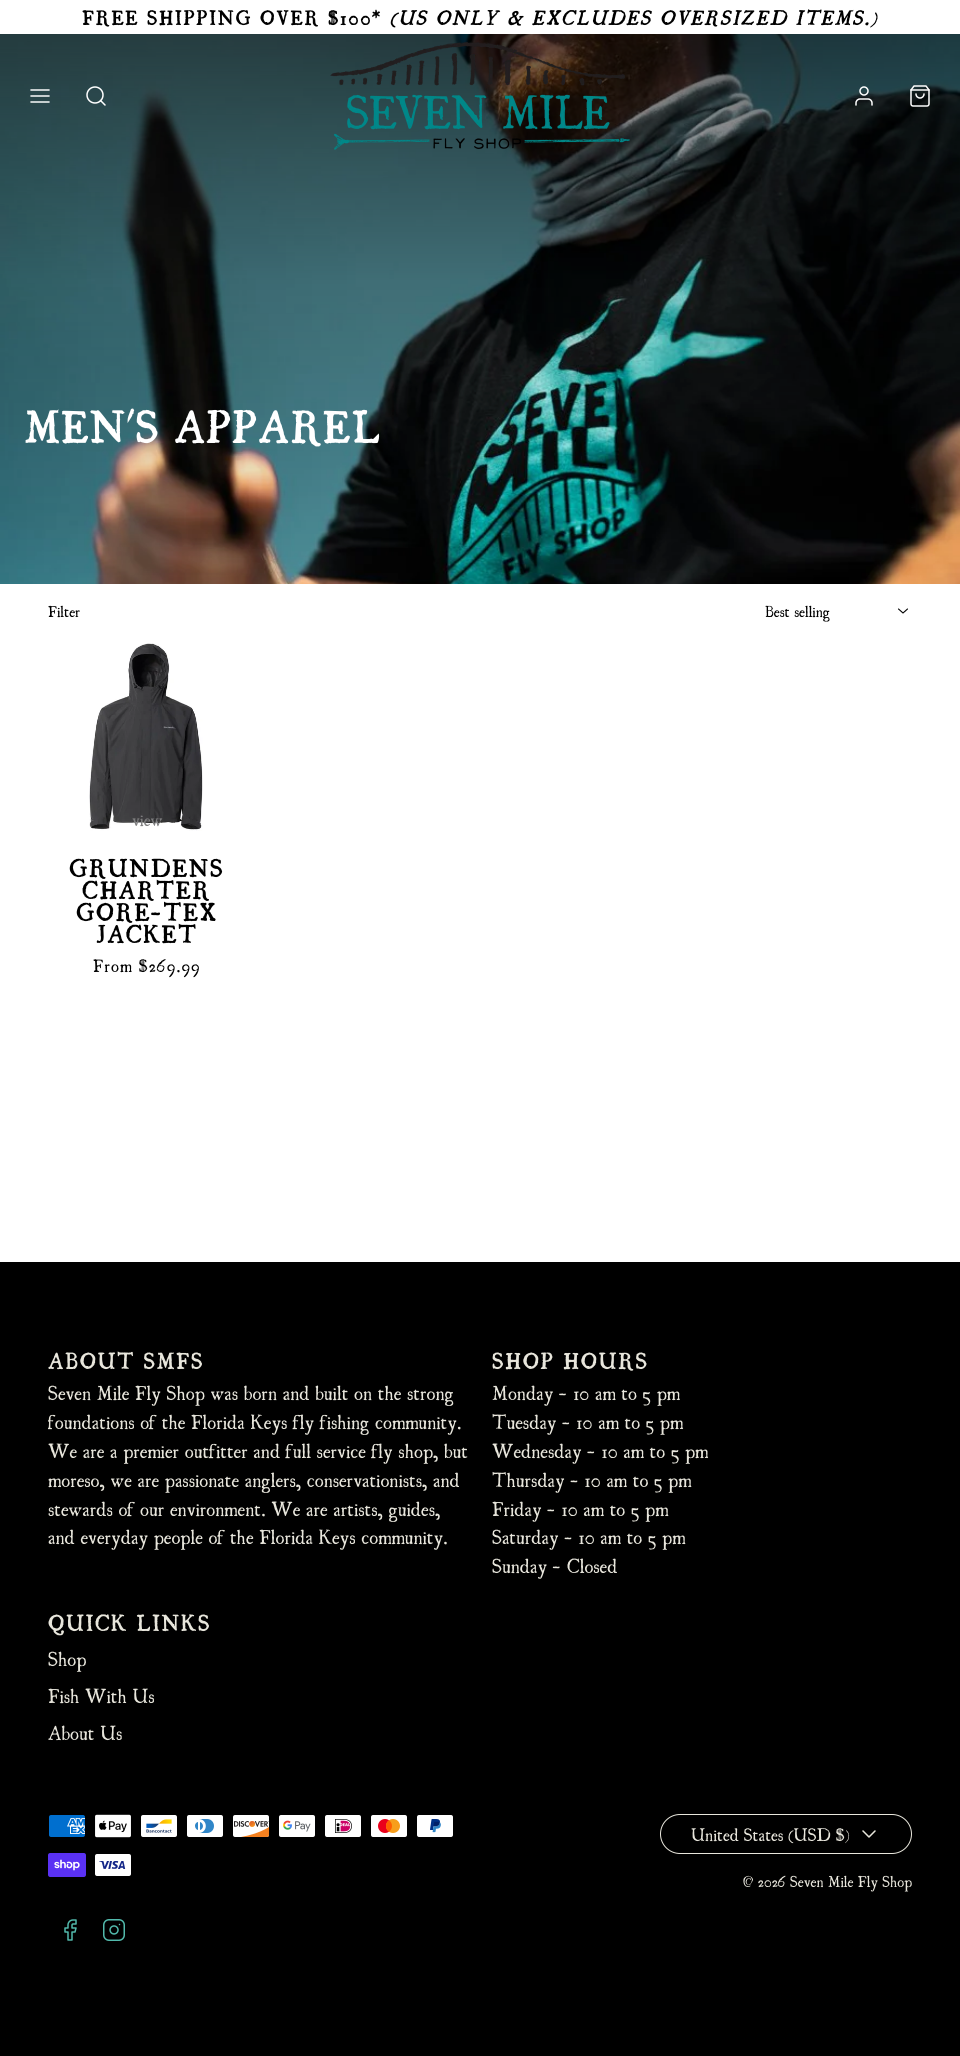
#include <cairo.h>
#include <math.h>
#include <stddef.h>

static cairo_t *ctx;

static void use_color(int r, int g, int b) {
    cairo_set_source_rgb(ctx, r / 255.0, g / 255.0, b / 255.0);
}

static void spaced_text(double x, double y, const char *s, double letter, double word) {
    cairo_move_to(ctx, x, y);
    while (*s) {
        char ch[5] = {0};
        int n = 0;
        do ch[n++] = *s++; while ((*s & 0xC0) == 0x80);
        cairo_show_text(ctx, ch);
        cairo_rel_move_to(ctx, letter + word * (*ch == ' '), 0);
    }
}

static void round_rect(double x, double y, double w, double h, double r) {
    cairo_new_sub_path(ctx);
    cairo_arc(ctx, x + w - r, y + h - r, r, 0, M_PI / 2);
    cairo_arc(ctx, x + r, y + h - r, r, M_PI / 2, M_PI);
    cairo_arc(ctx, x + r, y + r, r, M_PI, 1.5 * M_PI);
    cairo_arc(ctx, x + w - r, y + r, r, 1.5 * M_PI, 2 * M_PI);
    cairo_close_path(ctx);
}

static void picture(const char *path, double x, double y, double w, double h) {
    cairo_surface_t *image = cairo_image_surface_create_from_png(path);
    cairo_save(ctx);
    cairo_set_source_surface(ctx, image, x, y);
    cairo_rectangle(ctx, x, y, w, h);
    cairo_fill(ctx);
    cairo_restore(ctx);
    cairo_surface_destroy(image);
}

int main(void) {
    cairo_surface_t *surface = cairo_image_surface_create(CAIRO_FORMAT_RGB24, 960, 2056);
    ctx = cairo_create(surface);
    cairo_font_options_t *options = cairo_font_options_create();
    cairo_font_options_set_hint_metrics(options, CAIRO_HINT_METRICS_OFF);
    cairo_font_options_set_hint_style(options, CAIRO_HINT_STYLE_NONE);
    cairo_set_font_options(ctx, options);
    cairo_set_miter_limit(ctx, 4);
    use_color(255, 255, 255);
    cairo_paint(ctx);
    cairo_select_font_face(ctx, "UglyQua", CAIRO_FONT_SLANT_NORMAL, CAIRO_FONT_WEIGHT_BOLD);
    cairo_set_font_size(ctx, 18);
    use_color(0, 0, 0);
    spaced_text(82, 25, "FREE SHIPPING OVER $100*", 2, 0);
    cairo_select_font_face(ctx, "UglyQua", CAIRO_FONT_SLANT_ITALIC, CAIRO_FONT_WEIGHT_BOLD);
    spaced_text(390, 25, "(US ONLY & EXCLUDES OVERSIZED ITEMS.)", 2, 0);
    picture("img5.png", 0, 34, 960, 550);
    picture("img1.png", 30, 89, 20, 14);
    cairo_arc(ctx, 95, 95, 8, 0, 2 * M_PI);
    use_color(255, 255, 255);
    cairo_set_line_width(ctx, 1.5);
    cairo_stroke(ctx);
    cairo_new_path(ctx);
    cairo_move_to(ctx, 105, 105);
    cairo_line_to(ctx, 100.5, 100.5);
    cairo_set_line_cap(ctx, CAIRO_LINE_CAP_ROUND);
    cairo_set_line_join(ctx, CAIRO_LINE_JOIN_ROUND);
    cairo_stroke(ctx);
    picture("img2.png", 330, 42, 300, 108);
    picture("img3.png", 855, 86, 18, 20);
    picture("img4.png", 910, 85, 20, 22);
    cairo_select_font_face(ctx, "UglyQua", CAIRO_FONT_SLANT_NORMAL, CAIRO_FONT_WEIGHT_BOLD);
    cairo_set_font_size(ctx, 40);
    spaced_text(24, 443, "MEN'S APPAREL", 2, 0);
    cairo_select_font_face(ctx, "UglyQua Medium", CAIRO_FONT_SLANT_NORMAL, CAIRO_FONT_WEIGHT_NORMAL);
    cairo_set_font_size(ctx, 14);
    use_color(0, 0, 0);
    cairo_move_to(ctx, 48, 617);
    cairo_show_text(ctx, "Filter");
    cairo_move_to(ctx, 765, 617);
    cairo_show_text(ctx, "Best selling");
    cairo_new_path(ctx);
    cairo_move_to(ctx, 898.5, 609);
    cairo_line_to(ctx, 903, 613);
    cairo_line_to(ctx, 907.5, 609);
    cairo_set_line_width(ctx, 1.1);
    cairo_stroke(ctx);
    picture("img6.png", 89, 643, 114, 188);
    cairo_set_font_size(ctx, 16);
    use_color(126, 126, 127);
    cairo_move_to(ctx, 132, 826);
    cairo_show_text(ctx, "view");
    cairo_select_font_face(ctx, "UglyQua", CAIRO_FONT_SLANT_NORMAL, CAIRO_FONT_WEIGHT_BOLD);
    cairo_set_font_size(ctx, 22);
    use_color(0, 0, 0);
    spaced_text(69, 877, "GRUNDENS", 2, 0);
    spaced_text(82, 899, "CHARTER", 2, 0);
    spaced_text(76, 921, "GORE-TEX", 2, 0);
    spaced_text(96, 943, "JACKET", 2, 0);
    cairo_select_font_face(ctx, "UglyQua Medium", CAIRO_FONT_SLANT_NORMAL, CAIRO_FONT_WEIGHT_NORMAL);
    cairo_set_font_size(ctx, 16);
    spaced_text(93, 972, "From $269.99", 1, 0);
    cairo_rectangle(ctx, 0, 1262, 960, 794);
    cairo_fill(ctx);
    cairo_select_font_face(ctx, "UglyQua", CAIRO_FONT_SLANT_NORMAL, CAIRO_FONT_WEIGHT_BOLD);
    cairo_set_font_size(ctx, 20);
    use_color(232, 230, 220);
    spaced_text(48, 1369, "ABOUT SMFS", 2, 0);
    cairo_select_font_face(ctx, "UglyQua Medium", CAIRO_FONT_SLANT_NORMAL, CAIRO_FONT_WEIGHT_NORMAL);
    cairo_set_font_size(ctx, 18);
    cairo_move_to(ctx, 48, 1400);
    cairo_show_text(ctx, "Seven Mile Fly Shop was born and built on the strong");
    cairo_save(ctx);
    cairo_rectangle(ctx, 48, 1342, 420, 238);
    cairo_clip(ctx);
    cairo_move_to(ctx, 48, 1429);
    cairo_show_text(ctx, "foundations of the Florida Keys fly fishing community.");
    cairo_restore(ctx);
    cairo_move_to(ctx, 48, 1458);
    cairo_show_text(ctx, "We are a premier outfitter and full service fly shop, but");
    cairo_move_to(ctx, 48, 1487);
    cairo_show_text(ctx, "moreso, we are passionate anglers, conservationists, and");
    cairo_move_to(ctx, 48, 1516);
    cairo_show_text(ctx, "stewards of our environment. We are artists, guides,");
    cairo_move_to(ctx, 48, 1544);
    cairo_show_text(ctx, "and everyday people of the Florida Keys community.");
    cairo_select_font_face(ctx, "UglyQua", CAIRO_FONT_SLANT_NORMAL, CAIRO_FONT_WEIGHT_BOLD);
    cairo_set_font_size(ctx, 20);
    spaced_text(492, 1369, "SHOP HOURS", 2, 0);
    cairo_select_font_face(ctx, "UglyQua Medium", CAIRO_FONT_SLANT_NORMAL, CAIRO_FONT_WEIGHT_NORMAL);
    cairo_set_font_size(ctx, 18);
    cairo_move_to(ctx, 492, 1400);
    cairo_show_text(ctx, "Monday - 10 am to 5 pm");
    cairo_move_to(ctx, 492, 1429);
    cairo_show_text(ctx, "Tuesday - 10 am to 5 pm");
    cairo_move_to(ctx, 492, 1458);
    cairo_show_text(ctx, "Wednesday - 10 am to 5 pm");
    cairo_move_to(ctx, 492, 1487);
    cairo_show_text(ctx, "Thursday - 10 am to 5 pm");
    cairo_move_to(ctx, 492, 1516);
    cairo_show_text(ctx, "Friday - 10 am to 5 pm");
    cairo_move_to(ctx, 492, 1544);
    cairo_show_text(ctx, "Saturday - 10 am to 5 pm");
    cairo_move_to(ctx, 492, 1573);
    cairo_show_text(ctx, "Sunday - Closed");
    cairo_select_font_face(ctx, "UglyQua", CAIRO_FONT_SLANT_NORMAL, CAIRO_FONT_WEIGHT_BOLD);
    cairo_set_font_size(ctx, 20);
    spaced_text(48, 1631, "QUICK LINKS", 2, 0);
    cairo_select_font_face(ctx, "UglyQua Medium", CAIRO_FONT_SLANT_NORMAL, CAIRO_FONT_WEIGHT_NORMAL);
    cairo_set_font_size(ctx, 18);
    cairo_move_to(ctx, 48, 1666);
    cairo_show_text(ctx, "Shop");
    cairo_move_to(ctx, 48, 1703);
    cairo_show_text(ctx, "Fish With Us");
    cairo_move_to(ctx, 48, 1740);
    cairo_show_text(ctx, "About Us");
    picture("img7.png", 49, 1815, 36, 22);
    picture("img8.png", 95, 1814, 36, 24);
    picture("img9.png", 141, 1815, 36, 22);
    picture("img10.png", 187, 1815, 36, 22);
    picture("img11.png", 233, 1815, 37, 22);
    picture("img12.png", 279, 1815, 36, 22);
    picture("img13.png", 325, 1815, 36, 22);
    picture("img14.png", 371, 1815, 36, 22);
    picture("img15.png", 417, 1815, 36, 22);
    picture("img16.png", 48, 1853, 38, 24);
    picture("img17.png", 95, 1854, 36, 22);
    picture("img18.png", 64, 1919, 13, 22);
    picture("img19.png", 103, 1919, 22, 22);
    round_rect(660.5, 1814.5, 251, 39, 19.5);
    cairo_set_line_width(ctx, 1);
    cairo_set_line_cap(ctx, CAIRO_LINE_CAP_BUTT);
    cairo_set_line_join(ctx, CAIRO_LINE_JOIN_MITER);
    cairo_stroke(ctx);
    cairo_set_font_size(ctx, 16);
    cairo_move_to(ctx, 691, 1841);
    cairo_show_text(ctx, "United States (USD $)");
    cairo_new_path(ctx);
    cairo_move_to(ctx, 863, 1831);
    cairo_line_to(ctx, 869, 1837);
    cairo_line_to(ctx, 875, 1831);
    cairo_set_line_width(ctx, 1.5);
    cairo_set_line_cap(ctx, CAIRO_LINE_CAP_ROUND);
    cairo_set_line_join(ctx, CAIRO_LINE_JOIN_ROUND);
    cairo_stroke(ctx);
    cairo_set_font_size(ctx, 14);
    cairo_move_to(ctx, 743, 1887);
    cairo_show_text(ctx, "© 2026 Seven Mile Fly Shop");
    cairo_surface_write_to_png(surface, "result.png");
    cairo_font_options_destroy(options);
    cairo_destroy(ctx);
    cairo_surface_destroy(surface);
    return 0;
}
